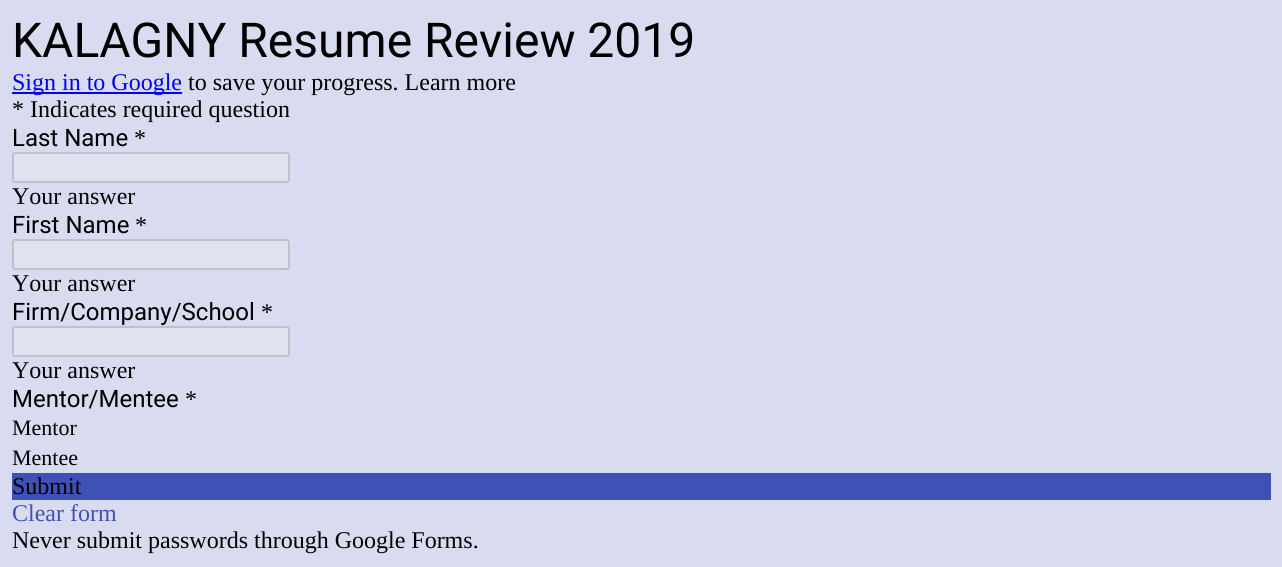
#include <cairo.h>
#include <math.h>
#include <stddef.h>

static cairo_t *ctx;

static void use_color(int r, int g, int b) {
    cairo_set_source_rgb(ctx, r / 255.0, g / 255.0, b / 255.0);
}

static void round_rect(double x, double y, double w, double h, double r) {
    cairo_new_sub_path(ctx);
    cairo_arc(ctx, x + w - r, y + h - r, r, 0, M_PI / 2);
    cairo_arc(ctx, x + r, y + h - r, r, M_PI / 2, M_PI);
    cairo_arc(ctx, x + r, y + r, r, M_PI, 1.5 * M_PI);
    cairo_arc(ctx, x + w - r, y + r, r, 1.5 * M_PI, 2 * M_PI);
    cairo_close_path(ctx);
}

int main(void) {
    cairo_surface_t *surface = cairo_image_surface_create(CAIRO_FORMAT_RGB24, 1282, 567);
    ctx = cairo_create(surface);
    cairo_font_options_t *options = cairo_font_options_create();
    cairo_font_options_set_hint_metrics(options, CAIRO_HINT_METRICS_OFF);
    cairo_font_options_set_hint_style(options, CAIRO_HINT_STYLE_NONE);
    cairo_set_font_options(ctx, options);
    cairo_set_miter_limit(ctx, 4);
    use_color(217, 220, 240);
    cairo_paint(ctx);
    cairo_select_font_face(ctx, "Roboto", CAIRO_FONT_SLANT_NORMAL, CAIRO_FONT_WEIGHT_NORMAL);
    cairo_set_font_size(ctx, 48);
    use_color(0, 0, 0);
    cairo_move_to(ctx, 12, 57);
    cairo_show_text(ctx, "KALAGNY Resume Review 2019");
    use_color(0, 0, 238);
    cairo_rectangle(ctx, 12, 92, 170, 2);
    cairo_fill(ctx);
    cairo_select_font_face(ctx, "Liberation Serif", CAIRO_FONT_SLANT_NORMAL, CAIRO_FONT_WEIGHT_NORMAL);
    cairo_set_font_size(ctx, 24);
    cairo_move_to(ctx, 12, 90);
    cairo_show_text(ctx, "Sign in to Google");
    use_color(0, 0, 0);
    cairo_move_to(ctx, 188, 90);
    cairo_show_text(ctx, "to save your progress. Learn more");
    cairo_move_to(ctx, 12, 117);
    cairo_show_text(ctx, "* Indicates required question");
    cairo_select_font_face(ctx, "Roboto", CAIRO_FONT_SLANT_NORMAL, CAIRO_FONT_WEIGHT_NORMAL);
    cairo_move_to(ctx, 12, 146);
    cairo_show_text(ctx, "Last Name");
    cairo_select_font_face(ctx, "Liberation Serif", CAIRO_FONT_SLANT_NORMAL, CAIRO_FONT_WEIGHT_NORMAL);
    cairo_move_to(ctx, 134, 146);
    cairo_show_text(ctx, "*");
    use_color(224, 226, 240);
    round_rect(12, 152, 278, 31, 3);
    cairo_fill(ctx);
    round_rect(13, 153, 276, 29, 2);
    cairo_set_source_rgba(ctx, 0.463, 0.463, 0.463, 0.3);
    cairo_stroke(ctx);
    use_color(0, 0, 0);
    cairo_move_to(ctx, 12, 204);
    cairo_show_text(ctx, "Your answer");
    cairo_select_font_face(ctx, "Roboto", CAIRO_FONT_SLANT_NORMAL, CAIRO_FONT_WEIGHT_NORMAL);
    cairo_move_to(ctx, 12, 233);
    cairo_show_text(ctx, "First Name");
    cairo_select_font_face(ctx, "Liberation Serif", CAIRO_FONT_SLANT_NORMAL, CAIRO_FONT_WEIGHT_NORMAL);
    cairo_move_to(ctx, 135, 233);
    cairo_show_text(ctx, "*");
    use_color(224, 226, 240);
    round_rect(12, 239, 278, 31, 3);
    cairo_fill(ctx);
    round_rect(13, 240, 276, 29, 2);
    cairo_set_source_rgba(ctx, 0.463, 0.463, 0.463, 0.3);
    cairo_stroke(ctx);
    use_color(0, 0, 0);
    cairo_move_to(ctx, 12, 291);
    cairo_show_text(ctx, "Your answer");
    cairo_select_font_face(ctx, "Roboto", CAIRO_FONT_SLANT_NORMAL, CAIRO_FONT_WEIGHT_NORMAL);
    cairo_move_to(ctx, 12, 320);
    cairo_show_text(ctx, "Firm/Company/School");
    cairo_select_font_face(ctx, "Liberation Serif", CAIRO_FONT_SLANT_NORMAL, CAIRO_FONT_WEIGHT_NORMAL);
    cairo_move_to(ctx, 261, 320);
    cairo_show_text(ctx, "*");
    use_color(224, 226, 240);
    round_rect(12, 326, 278, 31, 3);
    cairo_fill(ctx);
    round_rect(13, 327, 276, 29, 2);
    cairo_set_source_rgba(ctx, 0.463, 0.463, 0.463, 0.3);
    cairo_stroke(ctx);
    use_color(0, 0, 0);
    cairo_move_to(ctx, 12, 378);
    cairo_show_text(ctx, "Your answer");
    cairo_select_font_face(ctx, "Roboto", CAIRO_FONT_SLANT_NORMAL, CAIRO_FONT_WEIGHT_NORMAL);
    cairo_move_to(ctx, 12, 407);
    cairo_show_text(ctx, "Mentor/Mentee");
    cairo_select_font_face(ctx, "Liberation Serif", CAIRO_FONT_SLANT_NORMAL, CAIRO_FONT_WEIGHT_NORMAL);
    cairo_move_to(ctx, 185, 407);
    cairo_show_text(ctx, "*");
    cairo_set_font_size(ctx, 22);
    cairo_move_to(ctx, 12, 435);
    cairo_show_text(ctx, "Mentor");
    cairo_move_to(ctx, 12, 465);
    cairo_show_text(ctx, "Mentee");
    use_color(63, 81, 181);
    cairo_rectangle(ctx, 12, 473, 1259, 27);
    cairo_fill(ctx);
    cairo_set_font_size(ctx, 24);
    use_color(0, 0, 0);
    cairo_move_to(ctx, 12, 494);
    cairo_show_text(ctx, "Submit");
    use_color(63, 81, 181);
    cairo_move_to(ctx, 12, 521);
    cairo_show_text(ctx, "Clear form");
    use_color(0, 0, 0);
    cairo_move_to(ctx, 12, 548);
    cairo_show_text(ctx, "Never submit passwords through Google Forms.");
    cairo_surface_write_to_png(surface, "result.png");
    cairo_font_options_destroy(options);
    cairo_destroy(ctx);
    cairo_surface_destroy(surface);
    return 0;
}
